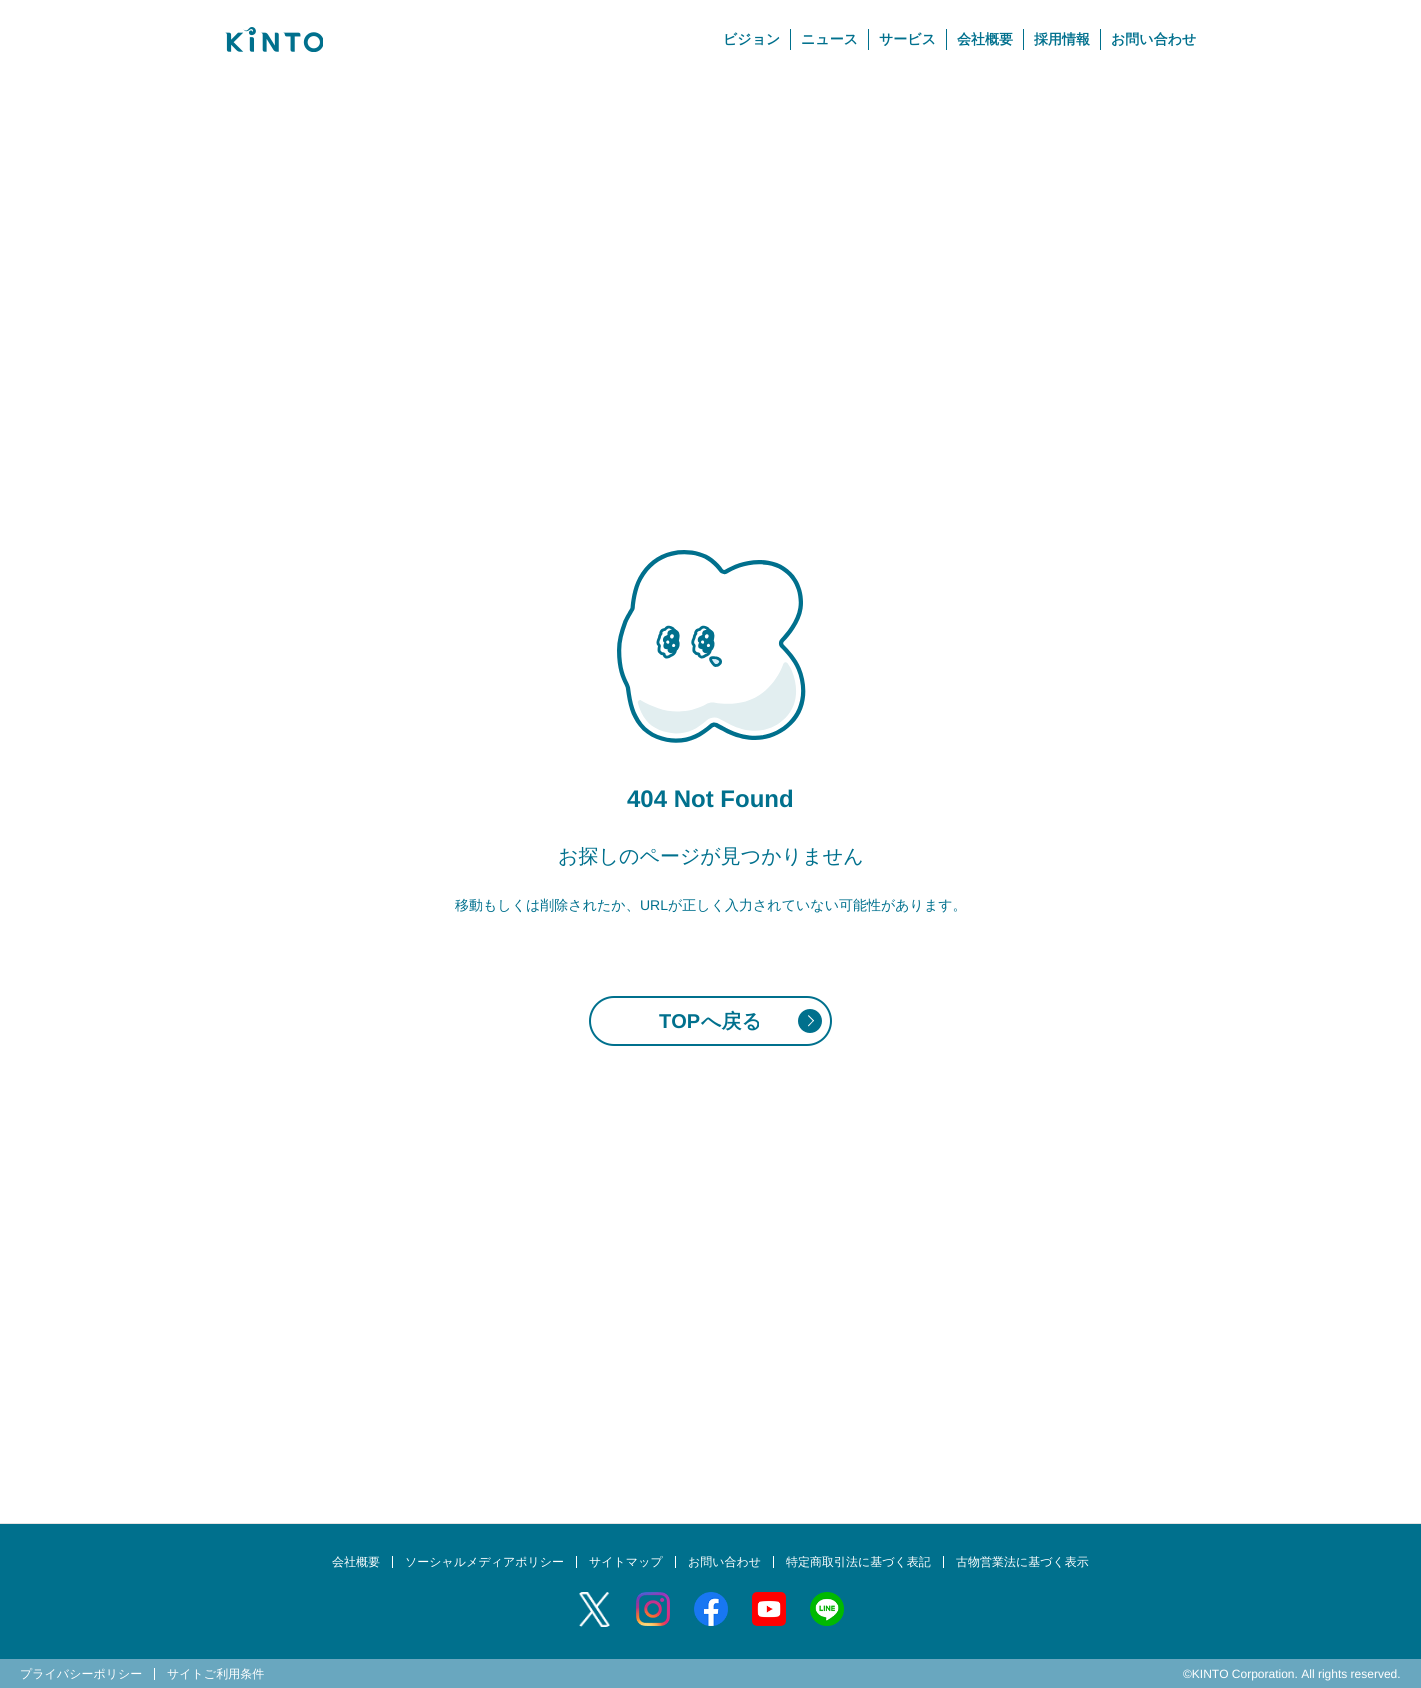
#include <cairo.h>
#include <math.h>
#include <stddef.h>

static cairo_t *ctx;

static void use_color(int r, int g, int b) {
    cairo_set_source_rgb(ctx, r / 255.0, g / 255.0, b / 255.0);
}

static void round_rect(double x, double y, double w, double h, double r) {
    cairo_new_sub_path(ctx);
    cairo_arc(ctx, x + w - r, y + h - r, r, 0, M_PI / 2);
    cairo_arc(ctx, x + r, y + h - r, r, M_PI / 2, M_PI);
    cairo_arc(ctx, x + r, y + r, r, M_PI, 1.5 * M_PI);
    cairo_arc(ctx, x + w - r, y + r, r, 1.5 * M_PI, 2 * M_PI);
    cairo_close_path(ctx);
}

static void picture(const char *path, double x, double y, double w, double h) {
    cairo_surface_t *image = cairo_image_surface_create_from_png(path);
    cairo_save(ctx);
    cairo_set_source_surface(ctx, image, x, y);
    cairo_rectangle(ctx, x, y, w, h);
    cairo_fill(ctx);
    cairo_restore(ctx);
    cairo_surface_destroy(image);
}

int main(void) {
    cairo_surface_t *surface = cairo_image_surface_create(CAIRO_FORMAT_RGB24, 1421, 1688);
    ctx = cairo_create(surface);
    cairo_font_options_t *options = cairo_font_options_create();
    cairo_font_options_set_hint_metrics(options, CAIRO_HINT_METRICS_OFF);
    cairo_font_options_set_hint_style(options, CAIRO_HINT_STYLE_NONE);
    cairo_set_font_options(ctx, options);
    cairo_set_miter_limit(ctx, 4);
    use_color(255, 255, 255);
    cairo_paint(ctx);
    picture("img1.png", 225, 27, 98, 25);
    use_color(0, 112, 141);
    cairo_rectangle(ctx, 790, 29, 1, 21);
    cairo_fill(ctx);
    cairo_select_font_face(ctx, "WenQuanYi Zen Hei", CAIRO_FONT_SLANT_NORMAL, CAIRO_FONT_WEIGHT_BOLD);
    cairo_set_font_size(ctx, 14);
    cairo_move_to(ctx, 723, 44);
    cairo_show_text(ctx, "ビジョン");
    cairo_rectangle(ctx, 868, 29, 1, 21);
    cairo_fill(ctx);
    cairo_move_to(ctx, 801, 44);
    cairo_show_text(ctx, "ニュース");
    cairo_rectangle(ctx, 946, 29, 1, 21);
    cairo_fill(ctx);
    cairo_move_to(ctx, 879, 44);
    cairo_show_text(ctx, "サービス");
    cairo_rectangle(ctx, 1023, 29, 1, 21);
    cairo_fill(ctx);
    cairo_move_to(ctx, 957, 44);
    cairo_show_text(ctx, "会社概要");
    cairo_rectangle(ctx, 1100, 29, 1, 21);
    cairo_fill(ctx);
    cairo_move_to(ctx, 1034, 44);
    cairo_show_text(ctx, "採用情報");
    cairo_move_to(ctx, 1111, 44);
    cairo_show_text(ctx, "お問い合わせ");
    picture("img2.png", 617, 550, 189, 193);
    cairo_select_font_face(ctx, "Liberation Sans", CAIRO_FONT_SLANT_NORMAL, CAIRO_FONT_WEIGHT_BOLD);
    cairo_set_font_size(ctx, 24);
    cairo_move_to(ctx, 627, 807);
    cairo_show_text(ctx, "404 Not Found");
    cairo_select_font_face(ctx, "WenQuanYi Zen Hei Medium", CAIRO_FONT_SLANT_NORMAL, CAIRO_FONT_WEIGHT_NORMAL);
    cairo_set_font_size(ctx, 20);
    cairo_move_to(ctx, 558, 863);
    cairo_show_text(ctx, "お探しのページが見つかりません");
    cairo_set_font_size(ctx, 14);
    cairo_move_to(ctx, 455, 910);
    cairo_show_text(ctx, "移動もしくは削除されたか、");
    cairo_select_font_face(ctx, "Liberation Sans", CAIRO_FONT_SLANT_NORMAL, CAIRO_FONT_WEIGHT_NORMAL);
    cairo_move_to(ctx, 640, 910);
    cairo_show_text(ctx, "URL");
    cairo_select_font_face(ctx, "WenQuanYi Zen Hei Medium", CAIRO_FONT_SLANT_NORMAL, CAIRO_FONT_WEIGHT_NORMAL);
    cairo_move_to(ctx, 668, 910);
    cairo_show_text(ctx, "が正しく入力されていない可能性があります。");
    round_rect(590, 997, 241, 48, 24);
    cairo_stroke(ctx);
    cairo_select_font_face(ctx, "Liberation Sans", CAIRO_FONT_SLANT_NORMAL, CAIRO_FONT_WEIGHT_BOLD);
    cairo_set_font_size(ctx, 20);
    cairo_move_to(ctx, 659, 1028);
    cairo_show_text(ctx, "TOP");
    cairo_select_font_face(ctx, "WenQuanYi Zen Hei", CAIRO_FONT_SLANT_NORMAL, CAIRO_FONT_WEIGHT_BOLD);
    cairo_move_to(ctx, 701, 1028);
    cairo_show_text(ctx, "へ戻る");
    cairo_new_path(ctx);
    cairo_arc(ctx, 810, 1021, 12, 0, 2 * M_PI);
    cairo_fill(ctx);
    use_color(255, 255, 255);
    cairo_new_path(ctx);
    cairo_move_to(ctx, 814, 1020.5);
    cairo_line_to(ctx, 808.5, 1026.5);
    cairo_line_to(ctx, 808, 1025.5);
    cairo_line_to(ctx, 813.5, 1020);
    cairo_close_path(ctx);
    cairo_fill(ctx);
    cairo_new_path(ctx);
    cairo_move_to(ctx, 814, 1020.5);
    cairo_line_to(ctx, 813.5, 1021.5);
    cairo_line_to(ctx, 808, 1016);
    cairo_line_to(ctx, 808.5, 1015);
    cairo_close_path(ctx);
    cairo_fill(ctx);
    use_color(227, 227, 227);
    cairo_rectangle(ctx, 0, 1523, 1421, 1);
    cairo_fill(ctx);
    use_color(0, 112, 141);
    cairo_rectangle(ctx, 0, 1524, 1421, 135);
    cairo_fill(ctx);
    use_color(255, 255, 255);
    cairo_rectangle(ctx, 392, 1556, 1, 12);
    cairo_fill(ctx);
    cairo_select_font_face(ctx, "WenQuanYi Zen Hei Medium", CAIRO_FONT_SLANT_NORMAL, CAIRO_FONT_WEIGHT_NORMAL);
    cairo_set_font_size(ctx, 12);
    cairo_move_to(ctx, 332, 1566);
    cairo_show_text(ctx, "会社概要");
    cairo_rectangle(ctx, 576, 1556, 1, 12);
    cairo_fill(ctx);
    cairo_move_to(ctx, 405, 1566);
    cairo_show_text(ctx, "ソーシャルメディアポリシー");
    cairo_rectangle(ctx, 675, 1556, 1, 12);
    cairo_fill(ctx);
    cairo_move_to(ctx, 589, 1566);
    cairo_show_text(ctx, "サイトマップ");
    cairo_rectangle(ctx, 773, 1556, 1, 12);
    cairo_fill(ctx);
    cairo_move_to(ctx, 688, 1566);
    cairo_show_text(ctx, "お問い合わせ");
    cairo_rectangle(ctx, 943, 1556, 1, 12);
    cairo_fill(ctx);
    cairo_move_to(ctx, 786, 1566);
    cairo_show_text(ctx, "特定商取引法に基づく表記");
    cairo_move_to(ctx, 956, 1566);
    cairo_show_text(ctx, "古物営業法に基づく表示");
    picture("img3.png", 579, 1592, 31, 35);
    picture("img4.png", 636, 1592, 34, 34);
    picture("img5.png", 694, 1592, 34, 34);
    picture("img6.png", 752, 1592, 34, 34);
    picture("img7.png", 810, 1592, 34, 34);
    use_color(105, 167, 191);
    cairo_rectangle(ctx, 0, 1659, 1421, 29);
    cairo_fill(ctx);
    use_color(255, 255, 255);
    cairo_rectangle(ctx, 154, 1668, 1, 12);
    cairo_fill(ctx);
    cairo_move_to(ctx, 20, 1678);
    cairo_show_text(ctx, "プライバシーポリシー");
    cairo_move_to(ctx, 167, 1678);
    cairo_show_text(ctx, "サイトご利用条件");
    cairo_select_font_face(ctx, "Liberation Sans", CAIRO_FONT_SLANT_NORMAL, CAIRO_FONT_WEIGHT_NORMAL);
    cairo_move_to(ctx, 1183, 1678);
    cairo_show_text(ctx, "©KINTO Corporation. All rights reserved.");
    cairo_surface_write_to_png(surface, "result.png");
    cairo_font_options_destroy(options);
    cairo_destroy(ctx);
    cairo_surface_destroy(surface);
    return 0;
}
